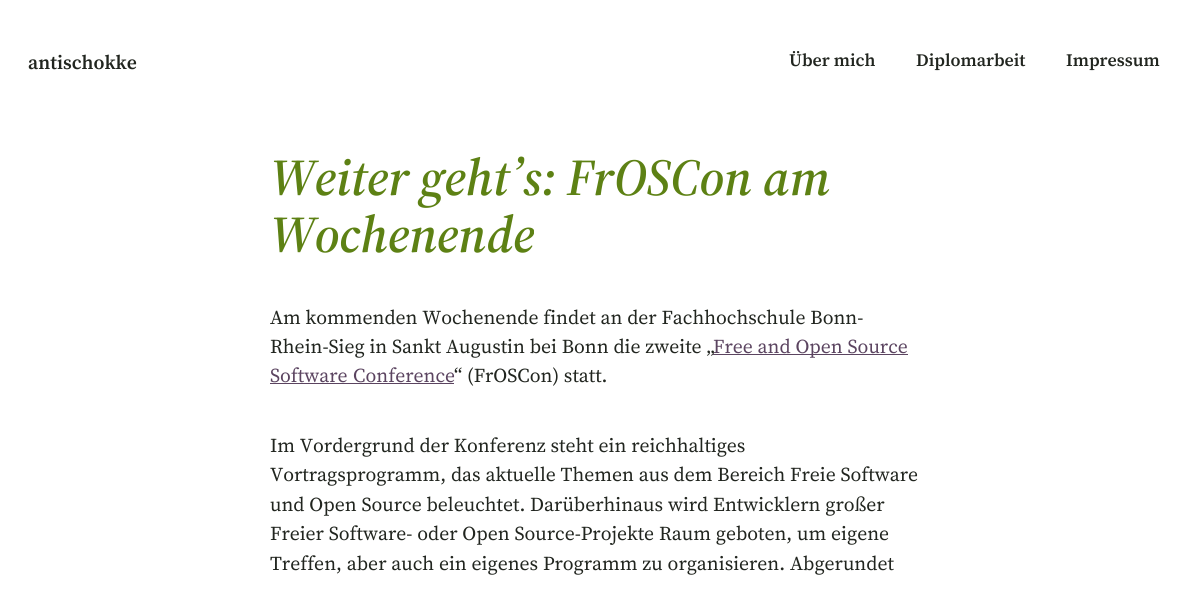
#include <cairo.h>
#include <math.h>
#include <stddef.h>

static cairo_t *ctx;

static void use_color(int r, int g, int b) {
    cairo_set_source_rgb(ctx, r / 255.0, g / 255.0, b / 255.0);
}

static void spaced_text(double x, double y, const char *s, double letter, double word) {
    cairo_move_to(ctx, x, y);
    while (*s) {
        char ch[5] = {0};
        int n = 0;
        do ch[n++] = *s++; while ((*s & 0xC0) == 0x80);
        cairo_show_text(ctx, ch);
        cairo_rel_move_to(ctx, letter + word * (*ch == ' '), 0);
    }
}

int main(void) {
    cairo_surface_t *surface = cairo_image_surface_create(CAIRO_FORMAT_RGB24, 1189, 592);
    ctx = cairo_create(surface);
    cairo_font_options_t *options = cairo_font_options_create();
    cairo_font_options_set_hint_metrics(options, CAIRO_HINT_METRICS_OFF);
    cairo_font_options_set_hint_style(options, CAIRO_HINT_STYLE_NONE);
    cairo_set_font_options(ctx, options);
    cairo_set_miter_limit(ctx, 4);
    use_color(255, 255, 255);
    cairo_paint(ctx);
    cairo_select_font_face(ctx, "Source Serif 4 SemiBold", CAIRO_FONT_SLANT_NORMAL, CAIRO_FONT_WEIGHT_NORMAL);
    cairo_set_font_size(ctx, 19.65);
    use_color(33, 37, 31);
    cairo_move_to(ctx, 28, 69);
    cairo_show_text(ctx, "antischokke");
    cairo_select_font_face(ctx, "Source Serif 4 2 SemiBold", CAIRO_FONT_SLANT_NORMAL, CAIRO_FONT_WEIGHT_NORMAL);
    cairo_set_font_size(ctx, 17.5);
    cairo_move_to(ctx, 789, 66);
    cairo_show_text(ctx, "Über mich");
    cairo_move_to(ctx, 916, 66);
    cairo_show_text(ctx, "Diplomarbeit");
    cairo_move_to(ctx, 1066, 66);
    cairo_show_text(ctx, "Impressum");
    cairo_select_font_face(ctx, "Source Serif 4 SemiBold", CAIRO_FONT_SLANT_ITALIC, CAIRO_FONT_WEIGHT_NORMAL);
    cairo_set_font_size(ctx, 51.75);
    use_color(93, 129, 20);
    cairo_move_to(ctx, 270, 195);
    cairo_show_text(ctx, "Weiter geht’s: FrOSCon am");
    cairo_move_to(ctx, 270, 252);
    cairo_show_text(ctx, "Wochenende");
    cairo_select_font_face(ctx, "Source Serif 4", CAIRO_FONT_SLANT_NORMAL, CAIRO_FONT_WEIGHT_NORMAL);
    cairo_set_font_size(ctx, 19.65);
    use_color(33, 37, 31);
    spaced_text(270, 324, "Am kommenden Wochenende findet an der Fachhochschule Bonn-", 0, 0.25);
    spaced_text(270, 353, "Rhein-Sieg in Sankt Augustin bei Bonn die zweite „", 0, 0.25);
    use_color(91, 68, 96);
    cairo_rectangle(ctx, 713, 354, 195, 1);
    cairo_fill(ctx);
    spaced_text(713, 353, "Free and Open Source", 0, 0.25);
    spaced_text(270, 382, "Software Conference", 0, 1);
    cairo_rectangle(ctx, 270, 383, 184, 1);
    cairo_fill(ctx);
    use_color(33, 37, 31);
    spaced_text(454, 382, "“ (FrOSCon) statt.", 0, 0.25);
    spaced_text(270, 452, "Im Vordergrund der Konferenz steht ein reichhaltiges", 0, 0.25);
    spaced_text(270, 481, "Vortragsprogramm, das aktuelle Themen aus dem Bereich Freie Software", 0, 0.25);
    spaced_text(270, 511, "und Open Source beleuchtet. Darüberhinaus wird Entwicklern großer", 0, 0.25);
    spaced_text(270, 540, "Freier Software- oder Open Source-Projekte Raum geboten, um eigene", 0, 0.25);
    spaced_text(270, 570, "Treffen, aber auch ein eigenes Programm zu organisieren. Abgerundet", 0, 0.25);
    cairo_surface_write_to_png(surface, "result.png");
    cairo_font_options_destroy(options);
    cairo_destroy(ctx);
    cairo_surface_destroy(surface);
    return 0;
}
